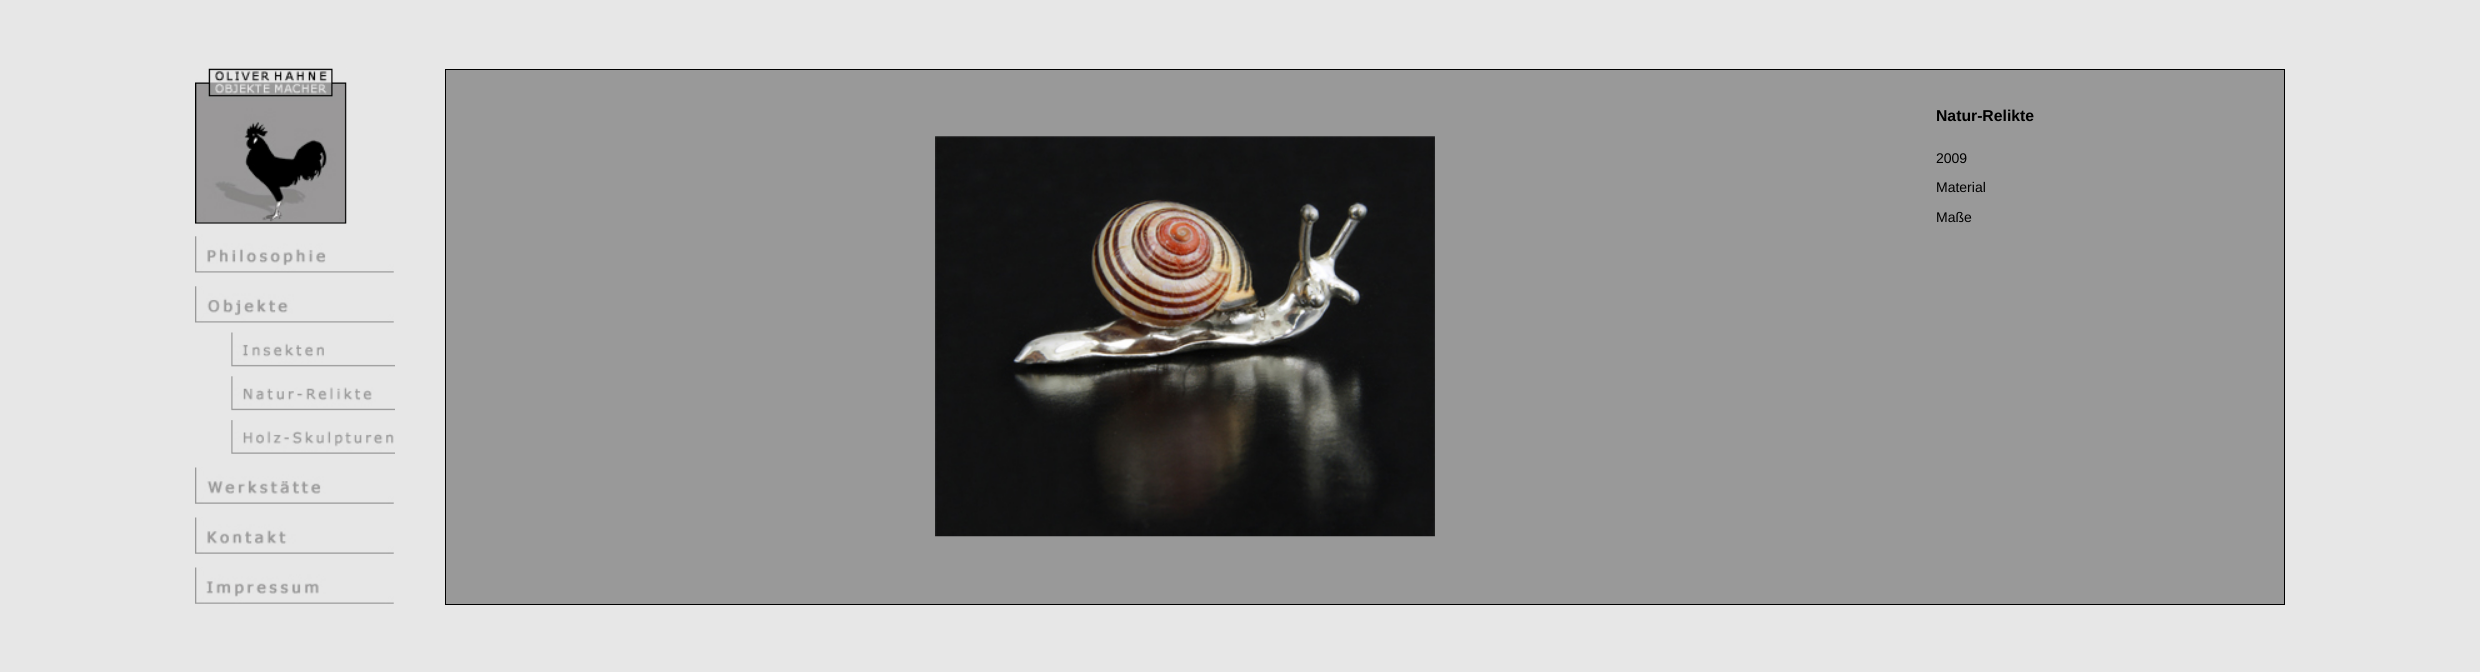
#include <cairo.h>
#include <math.h>
#include <stddef.h>

static cairo_t *ctx;

static void use_color(int r, int g, int b) {
    cairo_set_source_rgb(ctx, r / 255.0, g / 255.0, b / 255.0);
}

static void picture(const char *path, double x, double y, double w, double h) {
    cairo_surface_t *image = cairo_image_surface_create_from_png(path);
    cairo_save(ctx);
    cairo_set_source_surface(ctx, image, x, y);
    cairo_rectangle(ctx, x, y, w, h);
    cairo_fill(ctx);
    cairo_restore(ctx);
    cairo_surface_destroy(image);
}

int main(void) {
    cairo_surface_t *surface = cairo_image_surface_create(CAIRO_FORMAT_RGB24, 2480, 672);
    ctx = cairo_create(surface);
    cairo_font_options_t *options = cairo_font_options_create();
    cairo_font_options_set_hint_metrics(options, CAIRO_HINT_METRICS_OFF);
    cairo_font_options_set_hint_style(options, CAIRO_HINT_STYLE_NONE);
    cairo_set_font_options(ctx, options);
    cairo_set_miter_limit(ctx, 4);
    use_color(231, 231, 231);
    cairo_paint(ctx);
    picture("img1.png", 195, 68, 152, 156);
    use_color(153, 153, 153);
    cairo_rectangle(ctx, 446, 70, 1838, 534);
    cairo_fill(ctx);
    use_color(0, 0, 0);
    cairo_rectangle(ctx, 445, 69, 1, 536);
    cairo_fill(ctx);
    cairo_rectangle(ctx, 446, 69, 1838, 1);
    cairo_fill(ctx);
    picture("img2.png", 935, 136, 500, 401);
    cairo_select_font_face(ctx, "Liberation Sans", CAIRO_FONT_SLANT_NORMAL, CAIRO_FONT_WEIGHT_BOLD);
    cairo_set_font_size(ctx, 15.75);
    cairo_move_to(ctx, 1936, 121);
    cairo_show_text(ctx, "Natur-Relikte");
    cairo_select_font_face(ctx, "Liberation Sans", CAIRO_FONT_SLANT_NORMAL, CAIRO_FONT_WEIGHT_NORMAL);
    cairo_set_font_size(ctx, 14);
    cairo_move_to(ctx, 1936, 163);
    cairo_show_text(ctx, "2009");
    cairo_move_to(ctx, 1936, 192);
    cairo_show_text(ctx, "Material");
    cairo_move_to(ctx, 1936, 222);
    cairo_show_text(ctx, "Maße");
    cairo_rectangle(ctx, 446, 604, 1838, 1);
    cairo_fill(ctx);
    cairo_rectangle(ctx, 2284, 69, 1, 536);
    cairo_fill(ctx);
    picture("img3.png", 195, 223, 199, 50);
    picture("img4.png", 195, 286, 199, 37);
    picture("img5.png", 231, 332, 164, 35);
    picture("img6.png", 231, 376, 164, 35);
    picture("img7.png", 231, 420, 164, 34);
    picture("img8.png", 195, 467, 199, 37);
    picture("img9.png", 195, 517, 199, 37);
    picture("img10.png", 195, 567, 199, 37);
    cairo_surface_write_to_png(surface, "result.png");
    cairo_font_options_destroy(options);
    cairo_destroy(ctx);
    cairo_surface_destroy(surface);
    return 0;
}
